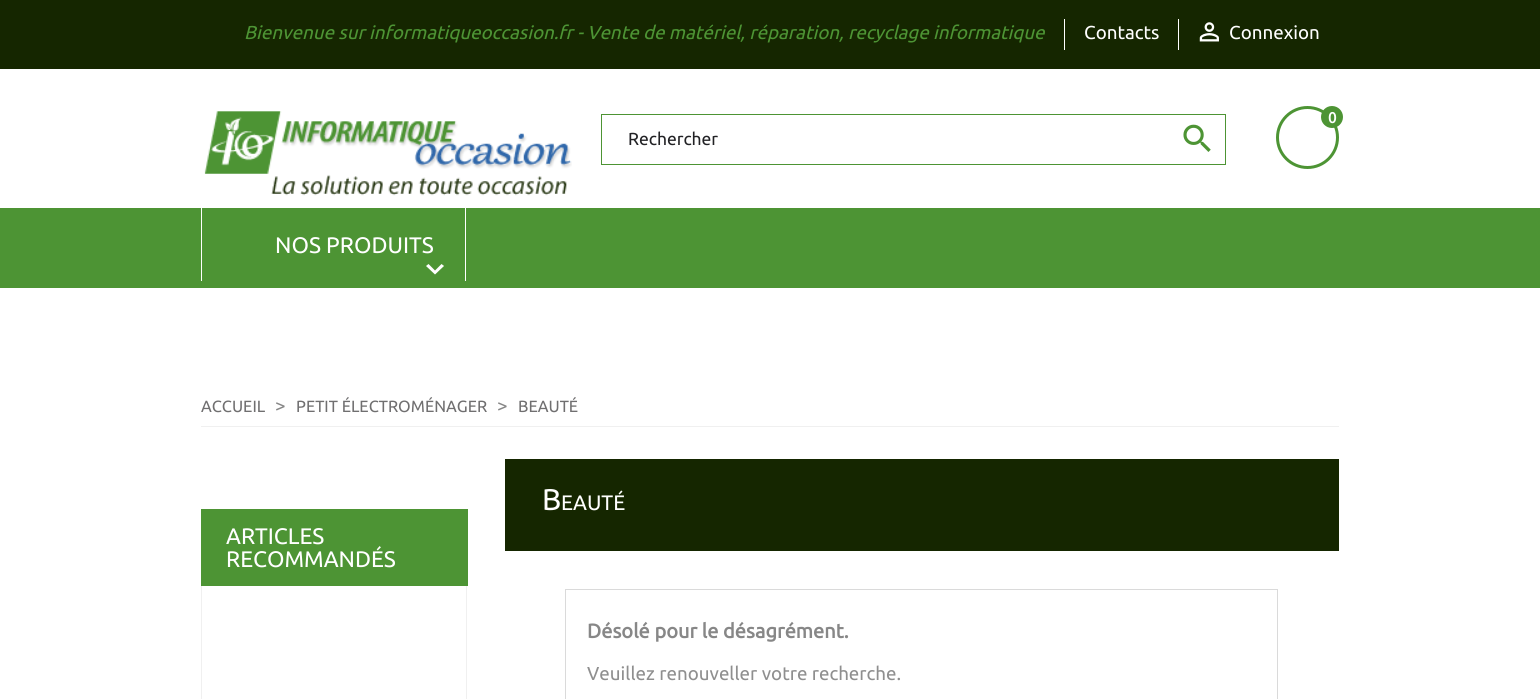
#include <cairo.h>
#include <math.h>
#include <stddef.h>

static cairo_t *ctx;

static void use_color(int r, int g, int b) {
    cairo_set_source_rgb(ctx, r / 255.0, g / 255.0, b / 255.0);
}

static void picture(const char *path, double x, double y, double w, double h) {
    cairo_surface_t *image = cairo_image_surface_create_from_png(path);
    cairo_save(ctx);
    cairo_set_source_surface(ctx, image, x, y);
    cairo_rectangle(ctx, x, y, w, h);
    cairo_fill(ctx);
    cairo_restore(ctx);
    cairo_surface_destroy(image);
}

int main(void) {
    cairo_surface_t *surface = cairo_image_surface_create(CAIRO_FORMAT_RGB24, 1540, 699);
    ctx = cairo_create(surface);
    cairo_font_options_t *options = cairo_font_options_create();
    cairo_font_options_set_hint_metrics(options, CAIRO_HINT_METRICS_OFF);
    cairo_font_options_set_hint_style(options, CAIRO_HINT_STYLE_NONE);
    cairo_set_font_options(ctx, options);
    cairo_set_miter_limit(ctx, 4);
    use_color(255, 255, 255);
    cairo_paint(ctx);
    use_color(21, 38, 0);
    cairo_rectangle(ctx, 0, 0, 1540, 69);
    cairo_fill(ctx);
    cairo_select_font_face(ctx, "Ubuntu", CAIRO_FONT_SLANT_ITALIC, CAIRO_FONT_WEIGHT_NORMAL);
    cairo_set_font_size(ctx, 18.75);
    use_color(77, 148, 52);
    cairo_move_to(ctx, 244, 39);
    cairo_show_text(ctx, "Bienvenue sur informatiqueoccasion.fr - Vente de matériel, réparation, recyclage informatique");
    use_color(255, 255, 255);
    cairo_rectangle(ctx, 1064, 19, 1, 31);
    cairo_fill(ctx);
    cairo_select_font_face(ctx, "Ubuntu", CAIRO_FONT_SLANT_NORMAL, CAIRO_FONT_WEIGHT_NORMAL);
    cairo_move_to(ctx, 1084, 39);
    cairo_show_text(ctx, "Contacts");
    cairo_rectangle(ctx, 1178, 19, 1, 31);
    cairo_fill(ctx);
    picture("img1.png", 1199, 22, 20, 20);
    cairo_move_to(ctx, 1229, 39);
    cairo_show_text(ctx, "Connexion");
    picture("img2.png", 204, 111, 368, 85);
    cairo_arc(ctx, 1307.5, 137.5, 30, 0, 2 * M_PI);
    use_color(77, 148, 52);
    cairo_set_line_width(ctx, 3);
    cairo_stroke(ctx);
    cairo_arc(ctx, 1332, 117, 11, 0, 2 * M_PI);
    cairo_fill(ctx);
    cairo_select_font_face(ctx, "Ubuntu", CAIRO_FONT_SLANT_NORMAL, CAIRO_FONT_WEIGHT_BOLD);
    cairo_set_font_size(ctx, 15);
    use_color(255, 255, 255);
    cairo_move_to(ctx, 1328, 123);
    cairo_show_text(ctx, "0");
    cairo_rectangle(ctx, 601.5, 114.5, 624, 50);
    use_color(77, 148, 52);
    cairo_set_line_width(ctx, 1);
    cairo_stroke(ctx);
    cairo_select_font_face(ctx, "Ubuntu", CAIRO_FONT_SLANT_NORMAL, CAIRO_FONT_WEIGHT_NORMAL);
    cairo_set_font_size(ctx, 17.5);
    use_color(34, 34, 37);
    cairo_move_to(ctx, 628, 145);
    cairo_show_text(ctx, "Rechercher");
    picture("img3.png", 1183, 124, 28, 28);
    use_color(77, 148, 52);
    cairo_rectangle(ctx, 0, 208, 1540, 80);
    cairo_fill(ctx);
    use_color(255, 255, 255);
    cairo_rectangle(ctx, 465, 208, 1, 73);
    cairo_fill(ctx);
    cairo_rectangle(ctx, 201, 208, 1, 73);
    cairo_fill(ctx);
    cairo_set_font_size(ctx, 22.5);
    cairo_move_to(ctx, 275, 253);
    cairo_show_text(ctx, "NOS PRODUITS");
    cairo_new_path(ctx);
    cairo_move_to(ctx, 428.5, 264);
    cairo_line_to(ctx, 435, 270.5);
    cairo_line_to(ctx, 441.5, 264);
    cairo_line_to(ctx, 444, 266);
    cairo_line_to(ctx, 435, 274.5);
    cairo_line_to(ctx, 426, 266);
    cairo_close_path(ctx);
    cairo_fill(ctx);
    use_color(240, 240, 240);
    cairo_rectangle(ctx, 201, 426, 1138, 1);
    cairo_fill(ctx);
    cairo_set_font_size(ctx, 16.25);
    use_color(112, 111, 112);
    cairo_move_to(ctx, 201, 412);
    cairo_show_text(ctx, "ACCUEIL");
    cairo_set_font_size(ctx, 18.75);
    use_color(135, 135, 135);
    cairo_move_to(ctx, 275, 412);
    cairo_show_text(ctx, ">");
    cairo_set_font_size(ctx, 16.25);
    use_color(112, 111, 112);
    cairo_move_to(ctx, 296, 412);
    cairo_show_text(ctx, "PETIT ÉLECTROMÉNAGER");
    cairo_set_font_size(ctx, 18.75);
    use_color(135, 135, 135);
    cairo_move_to(ctx, 497, 412);
    cairo_show_text(ctx, ">");
    cairo_set_font_size(ctx, 16.25);
    use_color(112, 111, 112);
    cairo_move_to(ctx, 518, 412);
    cairo_show_text(ctx, "BEAUTÉ");
    use_color(77, 148, 52);
    cairo_rectangle(ctx, 201, 509, 267, 77);
    cairo_fill(ctx);
    cairo_set_font_size(ctx, 22.5);
    use_color(255, 255, 255);
    cairo_move_to(ctx, 226, 544);
    cairo_show_text(ctx, "ARTICLES");
    cairo_move_to(ctx, 226, 567);
    cairo_show_text(ctx, "RECOMMANDÉS");
    use_color(240, 240, 240);
    cairo_rectangle(ctx, 466, 586, 1, 113);
    cairo_fill(ctx);
    cairo_rectangle(ctx, 201, 586, 1, 113);
    cairo_fill(ctx);
    use_color(21, 38, 0);
    cairo_rectangle(ctx, 505, 459, 834, 92);
    cairo_fill(ctx);
    cairo_set_font_size(ctx, 30);
    use_color(255, 255, 255);
    cairo_move_to(ctx, 542, 510);
    cairo_show_text(ctx, "B");
    cairo_set_font_size(ctx, 21);
    cairo_move_to(ctx, 561, 510);
    cairo_show_text(ctx, "EAUTÉ");
    cairo_rectangle(ctx, 565.5, 589.5, 712, 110);
    use_color(218, 218, 218);
    cairo_stroke(ctx);
    cairo_select_font_face(ctx, "Ubuntu", CAIRO_FONT_SLANT_NORMAL, CAIRO_FONT_WEIGHT_BOLD);
    cairo_set_font_size(ctx, 20);
    use_color(135, 135, 135);
    cairo_move_to(ctx, 587, 638);
    cairo_show_text(ctx, "Désolé pour le désagrément.");
    cairo_select_font_face(ctx, "Ubuntu", CAIRO_FONT_SLANT_NORMAL, CAIRO_FONT_WEIGHT_NORMAL);
    cairo_set_font_size(ctx, 18.75);
    use_color(143, 143, 143);
    cairo_move_to(ctx, 587, 680);
    cairo_show_text(ctx, "Veuillez renouveller votre recherche.");
    cairo_surface_write_to_png(surface, "result.png");
    cairo_font_options_destroy(options);
    cairo_destroy(ctx);
    cairo_surface_destroy(surface);
    return 0;
}
